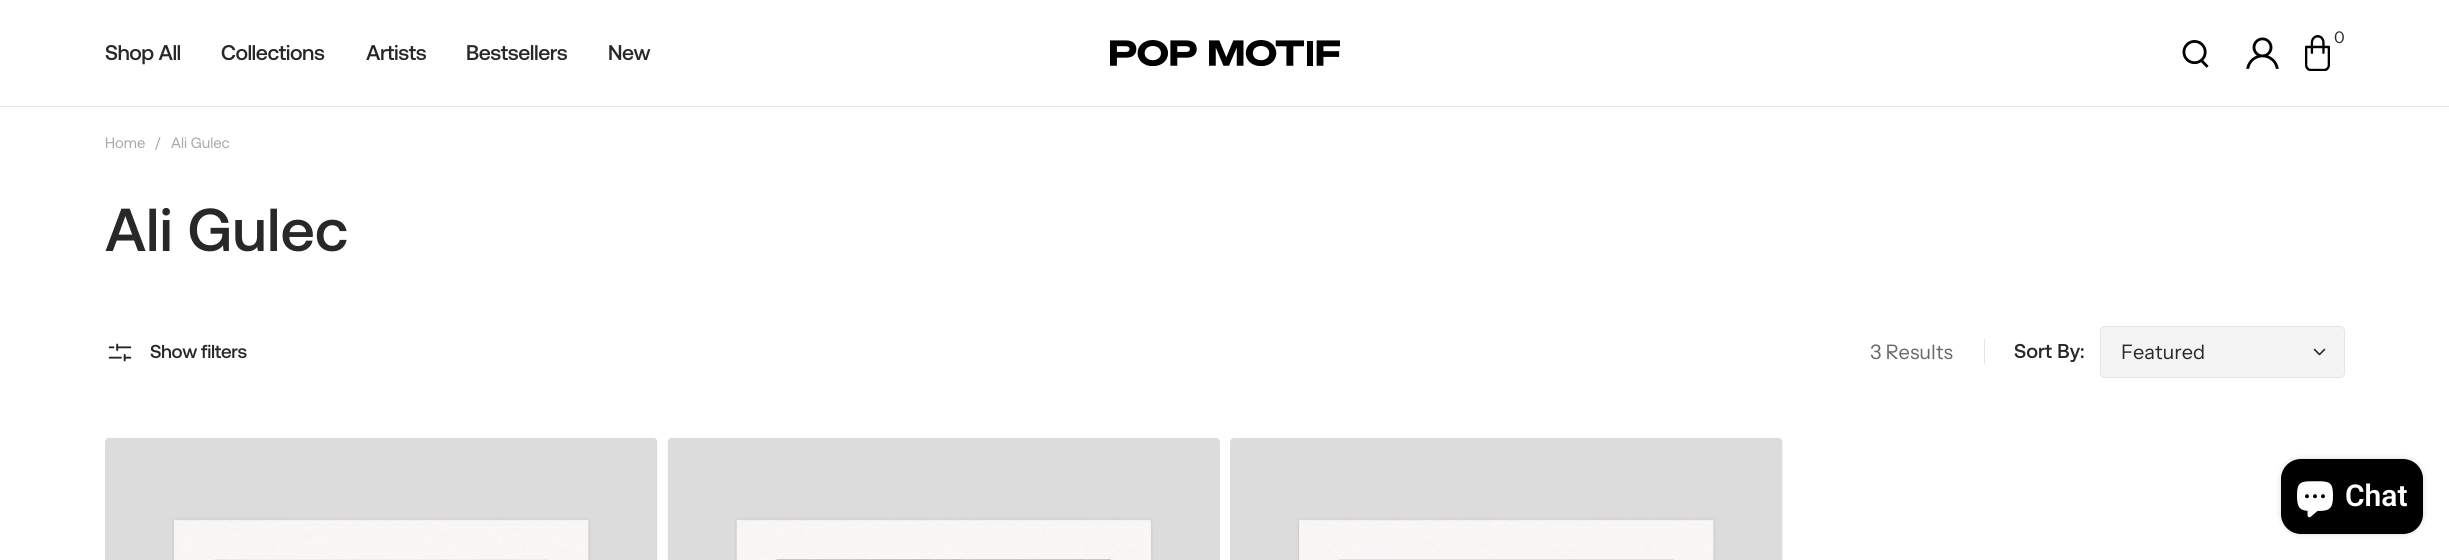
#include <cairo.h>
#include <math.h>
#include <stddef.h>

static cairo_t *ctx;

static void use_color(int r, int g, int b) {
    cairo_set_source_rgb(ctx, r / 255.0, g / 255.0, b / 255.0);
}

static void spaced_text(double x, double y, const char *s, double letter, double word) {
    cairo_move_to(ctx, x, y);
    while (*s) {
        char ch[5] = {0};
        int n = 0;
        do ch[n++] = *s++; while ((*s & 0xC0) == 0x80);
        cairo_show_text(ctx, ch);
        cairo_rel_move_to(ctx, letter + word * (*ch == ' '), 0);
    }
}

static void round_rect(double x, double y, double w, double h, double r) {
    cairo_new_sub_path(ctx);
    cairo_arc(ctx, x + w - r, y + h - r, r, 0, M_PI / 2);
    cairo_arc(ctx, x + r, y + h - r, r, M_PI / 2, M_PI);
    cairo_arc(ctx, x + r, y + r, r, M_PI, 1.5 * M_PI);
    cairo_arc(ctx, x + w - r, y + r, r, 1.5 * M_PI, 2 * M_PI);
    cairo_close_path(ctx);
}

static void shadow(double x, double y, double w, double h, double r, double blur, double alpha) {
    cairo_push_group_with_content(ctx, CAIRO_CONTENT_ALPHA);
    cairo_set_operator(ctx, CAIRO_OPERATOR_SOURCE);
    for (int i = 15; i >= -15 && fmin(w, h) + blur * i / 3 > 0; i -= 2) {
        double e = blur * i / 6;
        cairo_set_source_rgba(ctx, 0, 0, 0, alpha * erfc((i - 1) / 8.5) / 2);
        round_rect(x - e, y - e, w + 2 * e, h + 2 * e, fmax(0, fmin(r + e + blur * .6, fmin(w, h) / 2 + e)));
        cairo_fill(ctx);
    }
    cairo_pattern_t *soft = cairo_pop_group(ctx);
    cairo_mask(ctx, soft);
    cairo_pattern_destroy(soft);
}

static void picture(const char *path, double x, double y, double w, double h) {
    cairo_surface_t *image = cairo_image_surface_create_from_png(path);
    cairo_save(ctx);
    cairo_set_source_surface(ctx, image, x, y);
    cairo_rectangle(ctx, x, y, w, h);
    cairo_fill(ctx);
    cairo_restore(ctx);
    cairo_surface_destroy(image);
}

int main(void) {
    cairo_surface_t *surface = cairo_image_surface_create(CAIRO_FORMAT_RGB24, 2449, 560);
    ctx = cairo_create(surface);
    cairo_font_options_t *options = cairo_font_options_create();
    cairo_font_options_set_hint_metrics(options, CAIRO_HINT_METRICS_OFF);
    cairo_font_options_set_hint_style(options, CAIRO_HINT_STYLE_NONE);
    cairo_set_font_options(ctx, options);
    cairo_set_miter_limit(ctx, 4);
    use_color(255, 255, 255);
    cairo_paint(ctx);
    picture("img1.png", 2246, 37, 33, 32);
    picture("img2.png", 2305, 35, 25, 36);
    cairo_select_font_face(ctx, "Instrument Sans", CAIRO_FONT_SLANT_NORMAL, CAIRO_FONT_WEIGHT_NORMAL);
    cairo_set_font_size(ctx, 16);
    use_color(40, 40, 40);
    cairo_move_to(ctx, 2334, 43);
    cairo_show_text(ctx, "0");
    picture("img3.png", 2182, 40, 27, 28);
    cairo_select_font_face(ctx, "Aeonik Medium", CAIRO_FONT_SLANT_NORMAL, CAIRO_FONT_WEIGHT_NORMAL);
    cairo_set_font_size(ctx, 21.25);
    spaced_text(105, 60, "Shop All", -0.5, 0);
    spaced_text(221, 60, "Collections", -0.5, 0);
    spaced_text(366, 60, "Artists", -0.5, 0);
    spaced_text(466, 60, "Bestsellers", -0.5, 0);
    spaced_text(608, 60, "New", -0.5, 0);
    picture("img4.png", 1110, 40, 230, 26);
    use_color(229, 229, 229);
    cairo_rectangle(ctx, 0, 106, 2449, 1);
    cairo_fill(ctx);
    cairo_select_font_face(ctx, "Aeonik", CAIRO_FONT_SLANT_NORMAL, CAIRO_FONT_WEIGHT_NORMAL);
    cairo_set_font_size(ctx, 15);
    use_color(169, 169, 169);
    cairo_move_to(ctx, 105, 148);
    cairo_show_text(ctx, "Home");
    cairo_move_to(ctx, 155, 148);
    cairo_show_text(ctx, "/");
    cairo_move_to(ctx, 171, 148);
    cairo_show_text(ctx, "Ali Gulec");
    cairo_select_font_face(ctx, "Aeonik Medium", CAIRO_FONT_SLANT_NORMAL, CAIRO_FONT_WEIGHT_NORMAL);
    cairo_set_font_size(ctx, 60.5);
    use_color(40, 40, 40);
    cairo_move_to(ctx, 105, 251);
    cairo_show_text(ctx, "Ali Gulec");
    picture("img5.png", 108, 343, 24, 19);
    cairo_set_font_size(ctx, 18.75);
    spaced_text(150, 358, "Show filters", -0.4, 0);
    cairo_select_font_face(ctx, "Instrument Sans", CAIRO_FONT_SLANT_NORMAL, CAIRO_FONT_WEIGHT_NORMAL);
    cairo_set_font_size(ctx, 20);
    use_color(105, 105, 105);
    cairo_move_to(ctx, 1870, 359);
    cairo_show_text(ctx, "3 Results");
    use_color(229, 229, 229);
    cairo_rectangle(ctx, 1984, 339, 1, 25);
    cairo_fill(ctx);
    cairo_select_font_face(ctx, "Aeonik Medium", CAIRO_FONT_SLANT_NORMAL, CAIRO_FONT_WEIGHT_NORMAL);
    use_color(40, 40, 40);
    cairo_move_to(ctx, 2014, 358);
    cairo_show_text(ctx, "Sort By:");
    use_color(244, 244, 244);
    round_rect(2100.5, 326.5, 244, 51, 4.5);
    cairo_fill_preserve(ctx);
    use_color(229, 229, 229);
    cairo_set_line_width(ctx, 1);
    cairo_stroke(ctx);
    cairo_select_font_face(ctx, "Instrument Sans", CAIRO_FONT_SLANT_NORMAL, CAIRO_FONT_WEIGHT_NORMAL);
    use_color(40, 40, 40);
    cairo_move_to(ctx, 2121, 359);
    cairo_show_text(ctx, "Featured");
    cairo_new_path(ctx);
    cairo_move_to(ctx, 2324.5, 349.5);
    cairo_line_to(ctx, 2319.5, 354.5);
    cairo_line_to(ctx, 2314.5, 349.5);
    cairo_set_line_width(ctx, 1.6);
    cairo_set_line_cap(ctx, CAIRO_LINE_CAP_ROUND);
    cairo_set_line_join(ctx, CAIRO_LINE_JOIN_ROUND);
    cairo_stroke(ctx);
    use_color(245, 245, 245);
    cairo_new_path(ctx);
    cairo_move_to(ctx, 110, 438);
    cairo_line_to(ctx, 653, 438);
    cairo_curve_to(ctx, 656, 438, 658, 440, 658, 443);
    cairo_line_to(ctx, 658, 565);
    cairo_line_to(ctx, 105, 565);
    cairo_line_to(ctx, 105, 443);
    cairo_curve_to(ctx, 105, 440, 107, 438, 110, 438);
    cairo_close_path(ctx);
    cairo_fill(ctx);
    picture("img6.png", 105, 437, 552, 123);
    picture("img7.png", 667, 437, 553, 123);
    cairo_new_path(ctx);
    cairo_move_to(ctx, 1235, 438);
    cairo_line_to(ctx, 1778, 438);
    cairo_curve_to(ctx, 1781, 438, 1783, 440, 1783, 443);
    cairo_line_to(ctx, 1783, 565);
    cairo_line_to(ctx, 1230, 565);
    cairo_line_to(ctx, 1230, 443);
    cairo_curve_to(ctx, 1230, 440, 1232, 438, 1235, 438);
    cairo_close_path(ctx);
    cairo_fill(ctx);
    picture("img8.png", 1230, 437, 552, 123);
    use_color(0, 0, 0);
    shadow(2281, 459, 142, 75, 20, 3, 0.15);
    use_color(0, 0, 0);
    round_rect(2281, 459, 142, 75, 20);
    cairo_fill(ctx);
    picture("img9.png", 2297, 481, 36, 37);
    cairo_select_font_face(ctx, "Roboto SemiBold", CAIRO_FONT_SLANT_NORMAL, CAIRO_FONT_WEIGHT_NORMAL);
    cairo_set_font_size(ctx, 30);
    use_color(255, 255, 255);
    cairo_move_to(ctx, 2345, 506);
    cairo_show_text(ctx, "Chat");
    cairo_surface_write_to_png(surface, "result.png");
    cairo_font_options_destroy(options);
    cairo_destroy(ctx);
    cairo_surface_destroy(surface);
    return 0;
}
